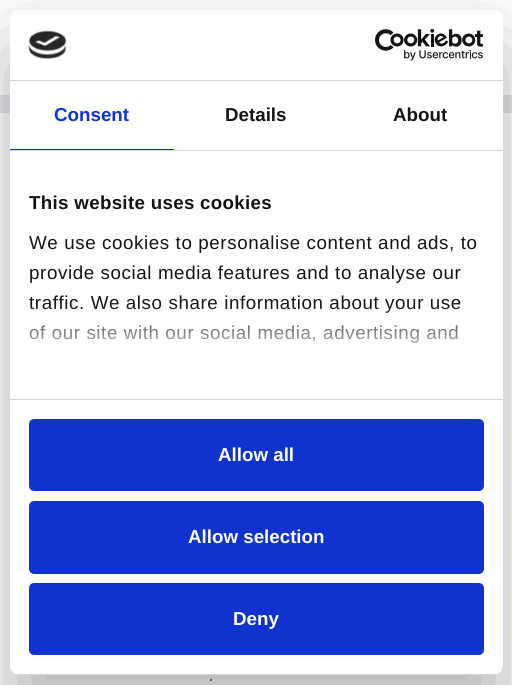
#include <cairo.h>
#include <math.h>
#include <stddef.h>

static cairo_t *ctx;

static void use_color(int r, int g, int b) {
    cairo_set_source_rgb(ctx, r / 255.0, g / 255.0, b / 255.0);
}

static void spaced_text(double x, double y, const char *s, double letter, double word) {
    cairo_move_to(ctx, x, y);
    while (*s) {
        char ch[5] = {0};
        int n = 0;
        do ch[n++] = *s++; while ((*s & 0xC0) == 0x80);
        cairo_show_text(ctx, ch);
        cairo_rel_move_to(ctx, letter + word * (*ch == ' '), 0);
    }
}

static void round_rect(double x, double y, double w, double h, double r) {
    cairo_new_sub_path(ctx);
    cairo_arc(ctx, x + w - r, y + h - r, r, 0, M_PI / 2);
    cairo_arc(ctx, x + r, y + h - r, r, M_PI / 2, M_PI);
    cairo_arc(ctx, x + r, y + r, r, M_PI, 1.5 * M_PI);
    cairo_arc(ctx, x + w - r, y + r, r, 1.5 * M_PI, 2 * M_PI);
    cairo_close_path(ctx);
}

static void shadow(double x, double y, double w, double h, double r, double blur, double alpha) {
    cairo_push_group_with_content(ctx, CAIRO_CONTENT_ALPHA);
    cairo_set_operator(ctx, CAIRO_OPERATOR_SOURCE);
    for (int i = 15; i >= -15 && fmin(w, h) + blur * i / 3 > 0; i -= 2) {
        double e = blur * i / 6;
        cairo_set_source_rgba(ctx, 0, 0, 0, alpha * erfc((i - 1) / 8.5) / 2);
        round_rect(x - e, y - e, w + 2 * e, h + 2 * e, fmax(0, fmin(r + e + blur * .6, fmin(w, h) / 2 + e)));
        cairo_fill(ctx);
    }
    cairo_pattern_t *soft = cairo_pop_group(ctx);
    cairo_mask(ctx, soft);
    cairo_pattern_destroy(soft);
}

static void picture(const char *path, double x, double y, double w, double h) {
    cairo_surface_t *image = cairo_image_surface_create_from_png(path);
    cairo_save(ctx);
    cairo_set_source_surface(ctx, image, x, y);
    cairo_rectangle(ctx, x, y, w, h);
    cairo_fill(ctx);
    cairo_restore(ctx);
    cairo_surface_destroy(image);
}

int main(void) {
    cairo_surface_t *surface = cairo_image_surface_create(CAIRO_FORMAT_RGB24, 512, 685);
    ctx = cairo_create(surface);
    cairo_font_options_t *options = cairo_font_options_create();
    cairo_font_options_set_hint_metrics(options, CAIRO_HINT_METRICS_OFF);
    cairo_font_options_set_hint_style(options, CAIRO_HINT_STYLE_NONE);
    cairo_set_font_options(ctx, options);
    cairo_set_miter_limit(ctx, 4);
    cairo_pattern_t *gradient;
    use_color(232, 233, 237);
    cairo_paint(ctx);
    use_color(255, 255, 255);
    cairo_rectangle(ctx, 0, 0, 512, 95);
    cairo_fill(ctx);
    cairo_rectangle(ctx, 0, 113, 512, 572);
    cairo_fill(ctx);
    use_color(0, 0, 0);
    shadow(10, 50, 493, 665, 10, 42.5, 0.3);
    use_color(255, 255, 255);
    round_rect(10, 10, 493, 665, 10);
    cairo_fill(ctx);
    use_color(214, 214, 214);
    cairo_rectangle(ctx, 10, 80, 493, 1);
    cairo_fill(ctx);
    picture("img1.png", 28, 30, 39, 29);
    picture("img2.png", 375, 29, 109, 32);
    cairo_rectangle(ctx, 10, 150, 493, 1);
    cairo_fill(ctx);
    use_color(16, 50, 207);
    cairo_rectangle(ctx, 10, 149, 164, 1);
    cairo_fill(ctx);
    cairo_select_font_face(ctx, "Liberation Sans", CAIRO_FONT_SLANT_NORMAL, CAIRO_FONT_WEIGHT_BOLD);
    cairo_set_font_size(ctx, 18.75);
    cairo_move_to(ctx, 54, 121);
    cairo_show_text(ctx, "Consent");
    use_color(20, 20, 20);
    cairo_move_to(ctx, 225, 121);
    cairo_show_text(ctx, "Details");
    cairo_move_to(ctx, 393, 121);
    cairo_show_text(ctx, "About");
    use_color(214, 214, 214);
    cairo_rectangle(ctx, 10, 399, 493, 1);
    cairo_fill(ctx);
    use_color(20, 20, 20);
    spaced_text(29, 209, "This website uses cookies", 0.3, 0);
    cairo_select_font_face(ctx, "Liberation Sans", CAIRO_FONT_SLANT_NORMAL, CAIRO_FONT_WEIGHT_NORMAL);
    spaced_text(29, 249, "We use cookies to personalise content and ads, to", 0.6, 0);
    spaced_text(29, 279, "provide social media features and to analyse our", 0.6, 0);
    spaced_text(29, 309, "traffic. We also share information about your use", 0.6, 0);
    spaced_text(29, 339, "of our site with our social media, advertising and", 0.6, 0);
    gradient = cairo_pattern_create_linear(248, 399, 248, 305);
    cairo_pattern_add_color_stop_rgba(gradient, 0, 1, 1, 1, 1);
    cairo_pattern_add_color_stop_rgba(gradient, 0.5, 1, 1, 1, 0.8);
    cairo_pattern_add_color_stop_rgba(gradient, 1, 1, 1, 1, 0);
    cairo_set_source(ctx, gradient);
    cairo_pattern_destroy(gradient);
    cairo_rectangle(ctx, 29, 306, 432, 37);
    cairo_fill(ctx);
    cairo_save(ctx);
    round_rect(10, 10, 493, 665, 10);
    cairo_clip(ctx);
    use_color(214, 214, 214);
    cairo_rectangle(ctx, 10, 674, 493, 1);
    cairo_fill(ctx);
    cairo_restore(ctx);
    use_color(16, 50, 207);
    round_rect(30.5, 420.5, 452, 69, 3.5);
    cairo_fill_preserve(ctx);
    cairo_set_line_width(ctx, 3);
    cairo_stroke(ctx);
    cairo_select_font_face(ctx, "Liberation Sans", CAIRO_FONT_SLANT_NORMAL, CAIRO_FONT_WEIGHT_BOLD);
    use_color(255, 255, 255);
    cairo_move_to(ctx, 218, 461);
    cairo_show_text(ctx, "Allow all");
    use_color(16, 50, 207);
    round_rect(30.5, 502.5, 452, 70, 3.5);
    cairo_fill_preserve(ctx);
    cairo_stroke(ctx);
    use_color(255, 255, 255);
    cairo_move_to(ctx, 188, 543);
    cairo_show_text(ctx, "Allow selection");
    use_color(16, 50, 207);
    round_rect(30.5, 584.5, 452, 69, 3.5);
    cairo_fill_preserve(ctx);
    cairo_stroke(ctx);
    use_color(255, 255, 255);
    cairo_move_to(ctx, 233, 625);
    cairo_show_text(ctx, "Deny");
    cairo_select_font_face(ctx, "Liberation Sans", CAIRO_FONT_SLANT_ITALIC, CAIRO_FONT_WEIGHT_NORMAL);
    cairo_set_font_size(ctx, 20);
    use_color(85, 85, 85);
    cairo_move_to(ctx, 209, 681);
    cairo_show_text(ctx, ".");
    cairo_surface_write_to_png(surface, "result.png");
    cairo_font_options_destroy(options);
    cairo_destroy(ctx);
    cairo_surface_destroy(surface);
    return 0;
}
